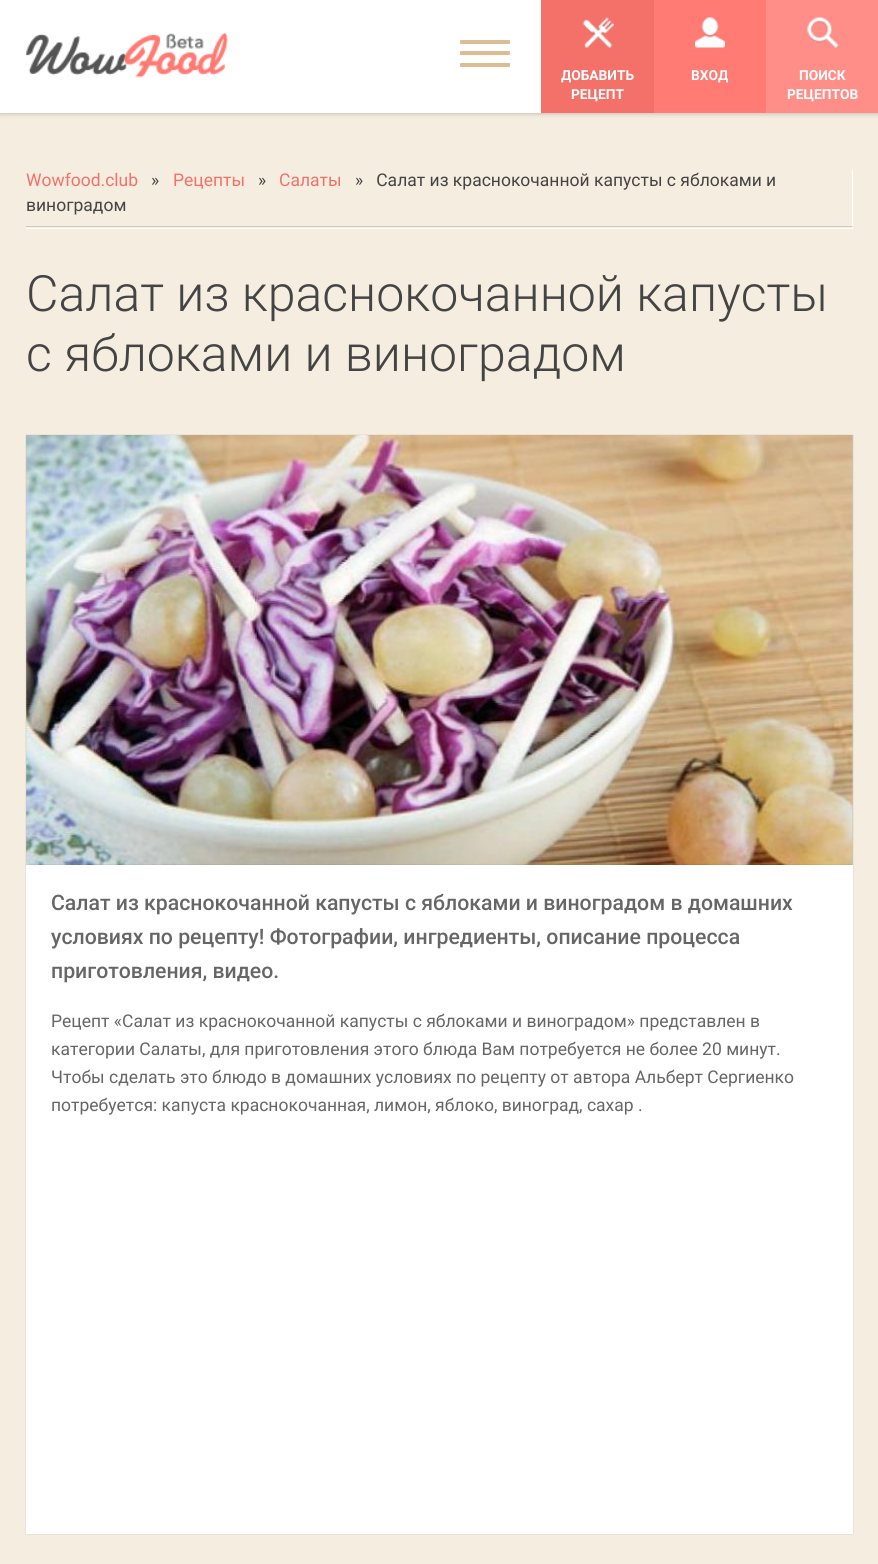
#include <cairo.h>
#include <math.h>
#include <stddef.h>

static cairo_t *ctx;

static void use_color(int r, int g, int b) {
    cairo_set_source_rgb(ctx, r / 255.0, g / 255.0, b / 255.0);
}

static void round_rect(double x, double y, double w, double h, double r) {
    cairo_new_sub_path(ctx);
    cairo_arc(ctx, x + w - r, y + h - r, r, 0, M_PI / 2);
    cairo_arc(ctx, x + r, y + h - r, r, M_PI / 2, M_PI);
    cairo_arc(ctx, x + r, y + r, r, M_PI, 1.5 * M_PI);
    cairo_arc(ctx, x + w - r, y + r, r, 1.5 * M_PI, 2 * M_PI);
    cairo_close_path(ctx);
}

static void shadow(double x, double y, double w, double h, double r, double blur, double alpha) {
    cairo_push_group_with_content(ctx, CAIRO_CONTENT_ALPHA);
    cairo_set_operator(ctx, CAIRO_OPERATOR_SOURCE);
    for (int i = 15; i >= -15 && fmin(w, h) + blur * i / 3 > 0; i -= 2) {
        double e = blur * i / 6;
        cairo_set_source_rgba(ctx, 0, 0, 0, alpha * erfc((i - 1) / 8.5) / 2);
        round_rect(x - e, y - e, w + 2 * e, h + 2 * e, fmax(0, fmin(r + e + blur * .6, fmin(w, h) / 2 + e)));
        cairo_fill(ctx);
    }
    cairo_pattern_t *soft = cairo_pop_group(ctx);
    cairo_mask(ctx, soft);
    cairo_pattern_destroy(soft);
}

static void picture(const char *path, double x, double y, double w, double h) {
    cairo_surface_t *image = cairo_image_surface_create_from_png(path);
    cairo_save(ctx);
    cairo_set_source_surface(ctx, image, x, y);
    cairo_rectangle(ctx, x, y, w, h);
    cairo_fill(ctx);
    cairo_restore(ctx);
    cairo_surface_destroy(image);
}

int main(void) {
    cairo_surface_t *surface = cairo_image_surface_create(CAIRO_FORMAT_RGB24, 878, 1564);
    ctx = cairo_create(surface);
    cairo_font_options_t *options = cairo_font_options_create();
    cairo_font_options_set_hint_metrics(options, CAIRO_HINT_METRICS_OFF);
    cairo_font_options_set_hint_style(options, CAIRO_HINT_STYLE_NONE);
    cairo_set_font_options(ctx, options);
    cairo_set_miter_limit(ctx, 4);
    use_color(245, 238, 224);
    cairo_paint(ctx);
    use_color(0, 0, 0);
    shadow(0, 1, 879, 113, 0, 2.5, 0.2);
    use_color(255, 255, 255);
    cairo_rectangle(ctx, 0, 0, 541, 113);
    cairo_fill(ctx);
    use_color(219, 188, 148);
    round_rect(460, 40, 50, 4, 1);
    cairo_fill(ctx);
    round_rect(460, 51, 50, 4, 1);
    cairo_fill(ctx);
    round_rect(460, 63, 50, 4, 1);
    cairo_fill(ctx);
    picture("img1.png", 26, 32, 202, 46);
    use_color(244, 113, 106);
    cairo_rectangle(ctx, 541, 0, 113, 113);
    cairo_fill(ctx);
    picture("img2.png", 582, 17, 32, 31);
    cairo_select_font_face(ctx, "Roboto", CAIRO_FONT_SLANT_NORMAL, CAIRO_FONT_WEIGHT_BOLD);
    cairo_set_font_size(ctx, 13.75);
    use_color(255, 255, 255);
    cairo_move_to(ctx, 561, 80);
    cairo_show_text(ctx, "ДОБАВИТЬ");
    cairo_move_to(ctx, 571, 99);
    cairo_show_text(ctx, "РЕЦЕПТ");
    use_color(255, 123, 116);
    cairo_rectangle(ctx, 654, 0, 112, 113);
    cairo_fill(ctx);
    picture("img3.png", 695, 17, 30, 31);
    use_color(255, 255, 255);
    cairo_move_to(ctx, 691, 80);
    cairo_show_text(ctx, "ВХОД");
    use_color(255, 142, 136);
    cairo_rectangle(ctx, 766, 0, 112, 113);
    cairo_fill(ctx);
    picture("img4.png", 807, 17, 32, 31);
    use_color(255, 255, 255);
    cairo_move_to(ctx, 799, 80);
    cairo_show_text(ctx, "ПОИСК");
    cairo_move_to(ctx, 787, 99);
    cairo_show_text(ctx, "РЕЦЕПТОВ");
    cairo_new_path(ctx);
    cairo_move_to(ctx, 26, 170);
    cairo_line_to(ctx, 26, 229);
    cairo_line_to(ctx, 853, 229);
    cairo_line_to(ctx, 853, 170);
    cairo_line_to(ctx, 852, 170);
    cairo_line_to(ctx, 852, 228);
    cairo_line_to(ctx, 26, 228);
    cairo_close_path(ctx);
    cairo_fill(ctx);
    cairo_set_source_rgba(ctx, 0, 0, 0, 0.15);
    cairo_rectangle(ctx, 26, 226, 827, 1);
    cairo_fill(ctx);
    cairo_select_font_face(ctx, "Roboto", CAIRO_FONT_SLANT_NORMAL, CAIRO_FONT_WEIGHT_NORMAL);
    cairo_set_font_size(ctx, 17.5);
    use_color(244, 113, 106);
    cairo_move_to(ctx, 26, 186);
    cairo_show_text(ctx, "Wowfood.club");
    use_color(68, 68, 68);
    cairo_move_to(ctx, 151, 186);
    cairo_show_text(ctx, "»");
    use_color(244, 113, 106);
    cairo_move_to(ctx, 173, 186);
    cairo_show_text(ctx, "Рецепты");
    use_color(68, 68, 68);
    cairo_move_to(ctx, 258, 186);
    cairo_show_text(ctx, "»");
    use_color(244, 113, 106);
    cairo_move_to(ctx, 279, 186);
    cairo_show_text(ctx, "Салаты");
    use_color(68, 68, 68);
    cairo_move_to(ctx, 355, 186);
    cairo_show_text(ctx, "»   Салат из краснокочанной капусты с яблоками и");
    cairo_move_to(ctx, 26, 211);
    cairo_show_text(ctx, "виноградом");
    cairo_select_font_face(ctx, "Roboto Light", CAIRO_FONT_SLANT_NORMAL, CAIRO_FONT_WEIGHT_NORMAL);
    cairo_set_font_size(ctx, 50);
    cairo_move_to(ctx, 26, 311);
    cairo_show_text(ctx, "Салат из краснокочанной капусты");
    cairo_move_to(ctx, 26, 371);
    cairo_show_text(ctx, "с яблоками и виноградом");
    use_color(0, 0, 0);
    shadow(26, 435, 827, 430, 0, 0.5, 0.2);
    picture("img5.png", 26, 435, 827, 430);
    shadow(26, 865, 827, 669, 0, 0.5, 0.2);
    use_color(255, 255, 255);
    cairo_rectangle(ctx, 26, 865, 827, 669);
    cairo_fill(ctx);
    cairo_select_font_face(ctx, "Roboto Medium", CAIRO_FONT_SLANT_NORMAL, CAIRO_FONT_WEIGHT_NORMAL);
    cairo_set_font_size(ctx, 21.25);
    use_color(102, 102, 102);
    cairo_move_to(ctx, 51, 910);
    cairo_show_text(ctx, "Салат из краснокочанной капусты с яблоками и виноградом в домашних");
    cairo_move_to(ctx, 51, 944);
    cairo_show_text(ctx, "условиях по рецепту! Фотографии, ингредиенты, описание процесса");
    cairo_move_to(ctx, 51, 978);
    cairo_show_text(ctx, "приготовления, видео.");
    cairo_select_font_face(ctx, "Roboto", CAIRO_FONT_SLANT_NORMAL, CAIRO_FONT_WEIGHT_NORMAL);
    cairo_set_font_size(ctx, 17.5);
    cairo_move_to(ctx, 51, 1027);
    cairo_show_text(ctx, "Рецепт «Салат из краснокочанной капусты с яблоками и виноградом» представлен в");
    cairo_move_to(ctx, 51, 1055);
    cairo_show_text(ctx, "категории Салаты, для приготовления этого блюда Вам потребуется не более 20 минут.");
    cairo_move_to(ctx, 51, 1083);
    cairo_show_text(ctx, "Чтобы сделать это блюдо в домашних условиях по рецепту от автора Альберт Сергиенко");
    cairo_move_to(ctx, 51, 1111);
    cairo_show_text(ctx, "потребуется: капуста краснокочанная, лимон, яблоко, виноград, сахар .");
    cairo_surface_write_to_png(surface, "result.png");
    cairo_font_options_destroy(options);
    cairo_destroy(ctx);
    cairo_surface_destroy(surface);
    return 0;
}
